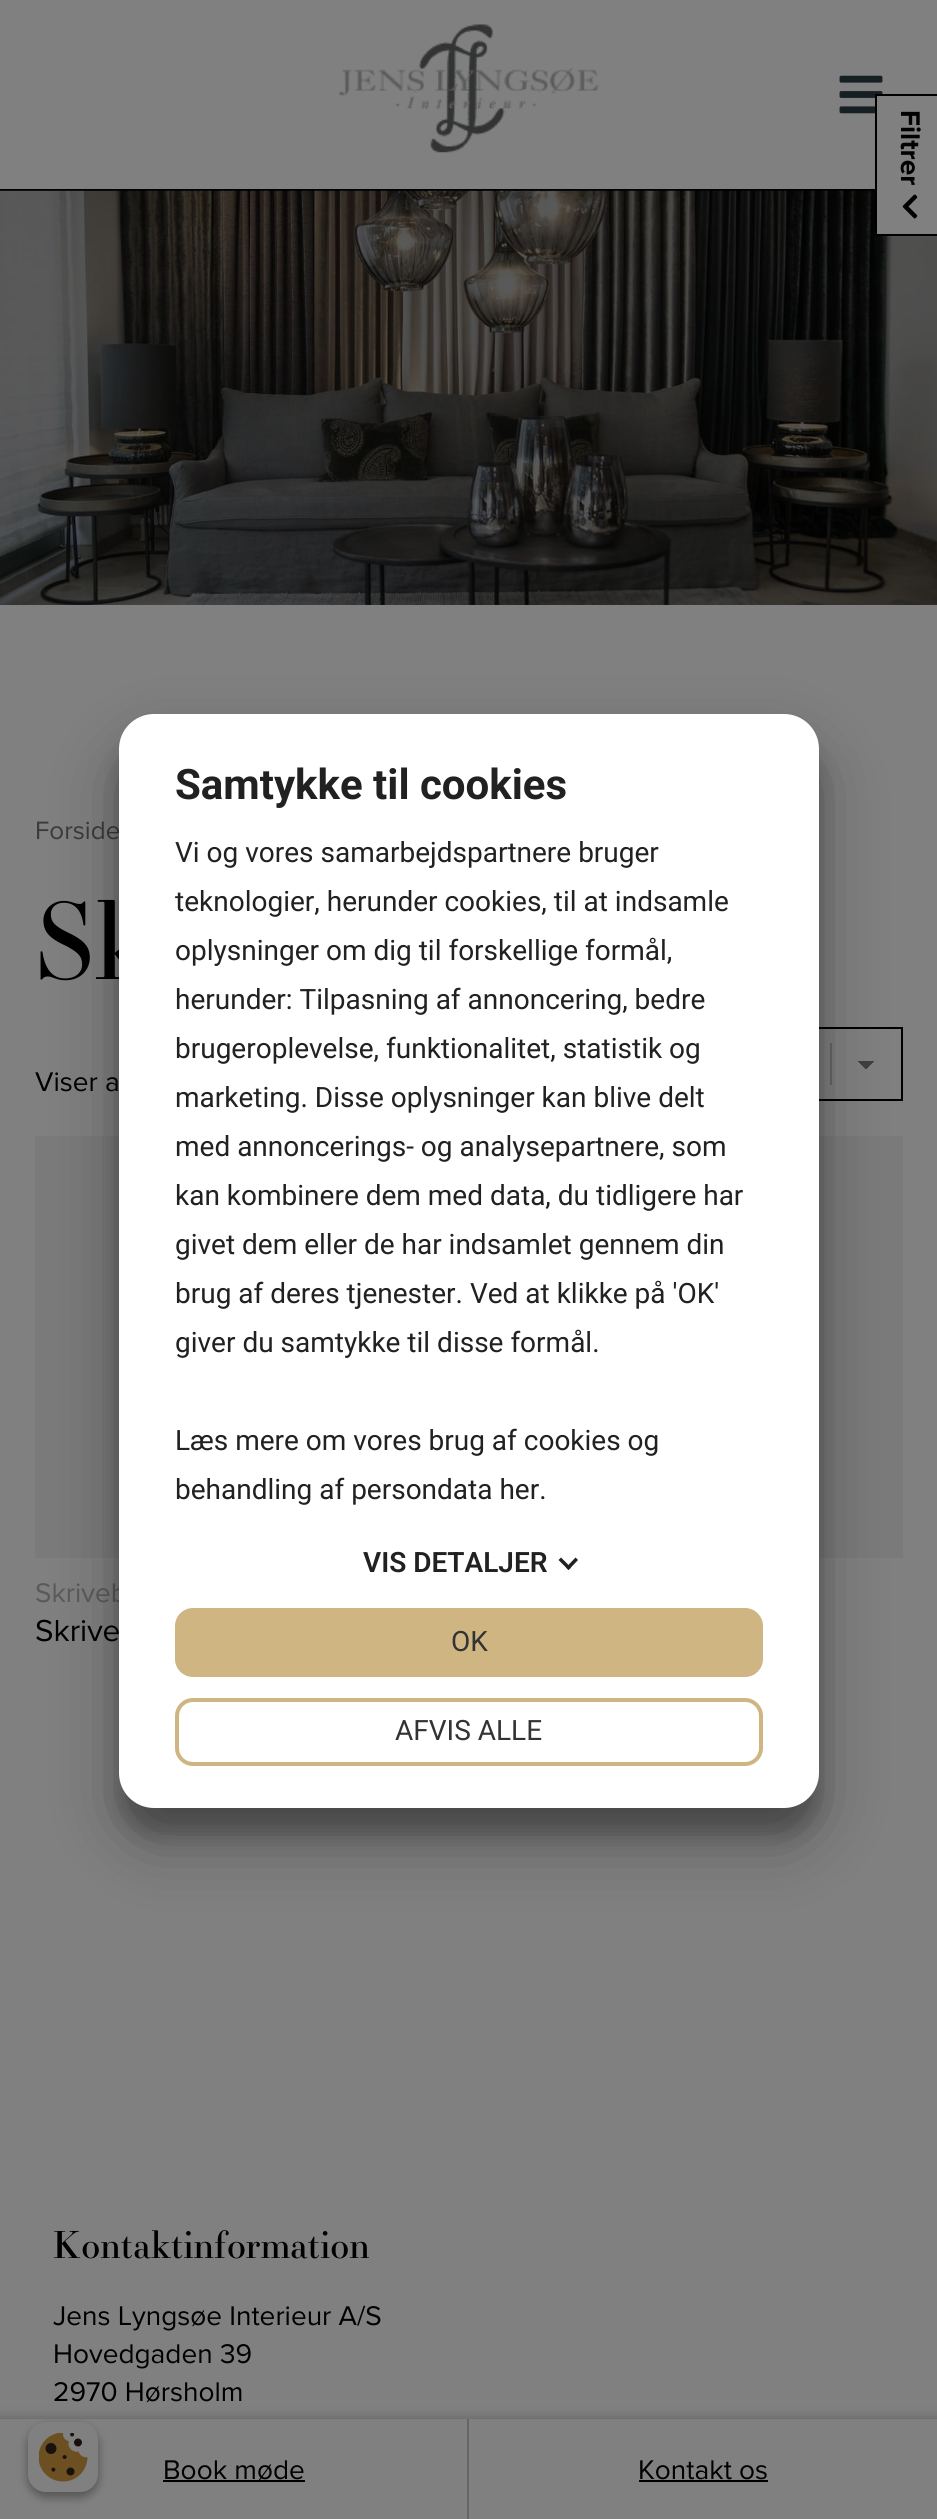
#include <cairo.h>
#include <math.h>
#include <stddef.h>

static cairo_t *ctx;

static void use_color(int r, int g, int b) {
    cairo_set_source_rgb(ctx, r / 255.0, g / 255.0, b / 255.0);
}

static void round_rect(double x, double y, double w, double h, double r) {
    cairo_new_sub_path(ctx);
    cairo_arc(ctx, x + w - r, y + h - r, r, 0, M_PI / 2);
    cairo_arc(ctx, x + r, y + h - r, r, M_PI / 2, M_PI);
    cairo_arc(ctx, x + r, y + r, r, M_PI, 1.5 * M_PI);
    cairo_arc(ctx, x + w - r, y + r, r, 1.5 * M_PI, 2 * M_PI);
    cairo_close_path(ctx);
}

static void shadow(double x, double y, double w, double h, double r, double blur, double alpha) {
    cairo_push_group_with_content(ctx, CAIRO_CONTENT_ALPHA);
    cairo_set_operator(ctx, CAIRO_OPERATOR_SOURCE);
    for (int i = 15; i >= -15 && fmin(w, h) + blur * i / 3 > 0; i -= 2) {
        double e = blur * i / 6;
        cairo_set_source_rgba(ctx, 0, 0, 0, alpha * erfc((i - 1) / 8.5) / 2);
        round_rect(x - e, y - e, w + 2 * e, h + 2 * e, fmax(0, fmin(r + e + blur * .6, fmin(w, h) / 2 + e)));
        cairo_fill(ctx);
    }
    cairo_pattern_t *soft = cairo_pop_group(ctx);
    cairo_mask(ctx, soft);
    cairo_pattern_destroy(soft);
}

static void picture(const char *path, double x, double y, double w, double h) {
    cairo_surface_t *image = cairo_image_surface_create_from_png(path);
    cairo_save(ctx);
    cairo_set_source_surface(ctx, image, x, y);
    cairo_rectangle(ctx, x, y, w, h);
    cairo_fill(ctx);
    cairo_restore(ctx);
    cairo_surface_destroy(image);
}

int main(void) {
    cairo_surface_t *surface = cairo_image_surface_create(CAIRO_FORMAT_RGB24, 937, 2519);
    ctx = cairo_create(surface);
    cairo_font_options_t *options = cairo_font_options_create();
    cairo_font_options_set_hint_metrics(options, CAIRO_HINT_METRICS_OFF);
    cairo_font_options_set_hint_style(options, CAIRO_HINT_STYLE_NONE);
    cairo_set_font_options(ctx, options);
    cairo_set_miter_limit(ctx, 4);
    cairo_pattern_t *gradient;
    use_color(128, 128, 128);
    cairo_paint(ctx);
    use_color(0, 0, 0);
    cairo_rectangle(ctx, 0, 189, 875, 2);
    cairo_fill(ctx);
    picture("img1.png", 339, 24, 260, 129);
    picture("img2.png", 839, 75, 44, 39);
    picture("img4.png", 0, 190, 937, 415);
    use_color(128, 128, 128);
    cairo_rectangle(ctx, 877, 96, 60, 138);
    cairo_fill(ctx);
    use_color(0, 0, 0);
    cairo_rectangle(ctx, 875, 234, 62, 2);
    cairo_fill(ctx);
    cairo_rectangle(ctx, 875, 94, 2, 142);
    cairo_fill(ctx);
    cairo_rectangle(ctx, 875, 94, 62, 2);
    cairo_fill(ctx);
    cairo_select_font_face(ctx, "Proxima Nova", CAIRO_FONT_SLANT_NORMAL, CAIRO_FONT_WEIGHT_BOLD);
    cairo_set_font_size(ctx, 28);
    cairo_save(ctx);
    cairo_translate(ctx, 901, 110);
    cairo_rotate(ctx, 90 * M_PI / 180);
    cairo_move_to(ctx, 0, 0);
    cairo_show_text(ctx, "Filtrer");
    cairo_restore(ctx);
    picture("img3.png", 902, 194, 16, 25);
    cairo_select_font_face(ctx, "Proxima Nova", CAIRO_FONT_SLANT_NORMAL, CAIRO_FONT_WEIGHT_NORMAL);
    cairo_set_font_size(ctx, 26);
    use_color(59, 59, 59);
    cairo_move_to(ctx, 35, 839);
    cairo_show_text(ctx, "Forside");
    cairo_select_font_face(ctx, "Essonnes", CAIRO_FONT_SLANT_NORMAL, CAIRO_FONT_WEIGHT_NORMAL);
    cairo_set_font_size(ctx, 105);
    use_color(0, 0, 0);
    cairo_move_to(ctx, 35, 979);
    cairo_show_text(ctx, "Sk");
    cairo_select_font_face(ctx, "Proxima Nova", CAIRO_FONT_SLANT_NORMAL, CAIRO_FONT_WEIGHT_NORMAL);
    cairo_set_font_size(ctx, 28);
    cairo_move_to(ctx, 35, 1091);
    cairo_show_text(ctx, "Viser a");
    use_color(102, 102, 102);
    cairo_rectangle(ctx, 830, 1043, 2, 42);
    cairo_fill(ctx);
    gradient = cairo_pattern_create_linear(866, 1061, 875, 1069);
    cairo_pattern_add_color_stop_rgba(gradient, 0.5, 0.251, 0.251, 0.251, 1);
    cairo_pattern_add_color_stop_rgba(gradient, 0.5, 0.502, 0.502, 0.502, 1);
    cairo_set_source(ctx, gradient);
    cairo_pattern_destroy(gradient);
    cairo_rectangle(ctx, 866, 1061, 9, 8);
    cairo_fill(ctx);
    gradient = cairo_pattern_create_linear(858, 1069, 866, 1061);
    cairo_pattern_add_color_stop_rgba(gradient, 0.5, 0.502, 0.502, 0.502, 1);
    cairo_pattern_add_color_stop_rgba(gradient, 0.5, 0.251, 0.251, 0.251, 1);
    cairo_set_source(ctx, gradient);
    cairo_pattern_destroy(gradient);
    cairo_rectangle(ctx, 858, 1061, 8, 8);
    cairo_fill(ctx);
    cairo_rectangle(ctx, 461, 1028, 441, 72);
    use_color(0, 0, 0);
    cairo_stroke(ctx);
    use_color(122, 122, 122);
    cairo_rectangle(ctx, 819, 1136, 84, 422);
    cairo_fill(ctx);
    cairo_rectangle(ctx, 35, 1136, 84, 422);
    cairo_fill(ctx);
    use_color(90, 90, 90);
    cairo_move_to(ctx, 35, 1602);
    cairo_show_text(ctx, "Skriveb");
    cairo_set_font_size(ctx, 31.5);
    use_color(0, 0, 0);
    cairo_move_to(ctx, 35, 1641);
    cairo_show_text(ctx, "Skrive");
    cairo_select_font_face(ctx, "Essonnes", CAIRO_FONT_SLANT_NORMAL, CAIRO_FONT_WEIGHT_NORMAL);
    cairo_set_font_size(ctx, 36.75);
    cairo_move_to(ctx, 53, 2258);
    cairo_show_text(ctx, "Kontaktinformation");
    cairo_select_font_face(ctx, "Proxima Nova", CAIRO_FONT_SLANT_NORMAL, CAIRO_FONT_WEIGHT_NORMAL);
    cairo_set_font_size(ctx, 28);
    cairo_move_to(ctx, 53, 2325);
    cairo_show_text(ctx, "Jens Lyngsøe Interieur A/S");
    cairo_move_to(ctx, 53, 2363);
    cairo_show_text(ctx, "Hovedgaden 39");
    cairo_move_to(ctx, 53, 2401);
    cairo_show_text(ctx, "2970 Hørsholm");
    use_color(0, 0, 0);
    shadow(119, 740, 700, 1094, 35, 10.5, 0.22);
    shadow(119, 747, 700, 1094, 35, 33, 0.3);
    use_color(255, 255, 255);
    round_rect(119, 714, 700, 1094, 35);
    cairo_fill(ctx);
    cairo_select_font_face(ctx, "Roboto", CAIRO_FONT_SLANT_NORMAL, CAIRO_FONT_WEIGHT_BOLD);
    cairo_set_font_size(ctx, 42);
    use_color(33, 33, 33);
    cairo_move_to(ctx, 175, 799);
    cairo_show_text(ctx, "Samtykke til cookies");
    cairo_select_font_face(ctx, "Roboto", CAIRO_FONT_SLANT_NORMAL, CAIRO_FONT_WEIGHT_NORMAL);
    cairo_set_font_size(ctx, 28);
    cairo_move_to(ctx, 175, 862);
    cairo_show_text(ctx, "Vi og vores samarbejdspartnere bruger");
    cairo_move_to(ctx, 175, 911);
    cairo_show_text(ctx, "teknologier, herunder cookies, til at indsamle");
    cairo_move_to(ctx, 175, 960);
    cairo_show_text(ctx, "oplysninger om dig til forskellige formål,");
    cairo_move_to(ctx, 175, 1009);
    cairo_show_text(ctx, "herunder: Tilpasning af annoncering, bedre");
    cairo_move_to(ctx, 175, 1058);
    cairo_show_text(ctx, "brugeroplevelse, funktionalitet, statistik og");
    cairo_move_to(ctx, 175, 1107);
    cairo_show_text(ctx, "marketing. Disse oplysninger kan blive delt");
    cairo_move_to(ctx, 175, 1156);
    cairo_show_text(ctx, "med annoncerings- og analysepartnere, som");
    cairo_move_to(ctx, 175, 1205);
    cairo_show_text(ctx, "kan kombinere dem med data, du tidligere har");
    cairo_move_to(ctx, 175, 1254);
    cairo_show_text(ctx, "givet dem eller de har indsamlet gennem din");
    cairo_move_to(ctx, 175, 1303);
    cairo_show_text(ctx, "brug af deres tjenester. Ved at klikke på 'OK'");
    cairo_move_to(ctx, 175, 1352);
    cairo_show_text(ctx, "giver du samtykke til disse formål.");
    cairo_move_to(ctx, 175, 1450);
    cairo_show_text(ctx, "Læs mere om vores brug af cookies og");
    cairo_move_to(ctx, 175, 1499);
    cairo_show_text(ctx, "behandling af persondata her.");
    cairo_select_font_face(ctx, "Roboto SemiBold", CAIRO_FONT_SLANT_NORMAL, CAIRO_FONT_WEIGHT_NORMAL);
    cairo_move_to(ctx, 363, 1572);
    cairo_show_text(ctx, "VIS DETALJER");
    cairo_new_path(ctx);
    cairo_move_to(ctx, 575.5, 1557.5);
    cairo_line_to(ctx, 578, 1560);
    cairo_line_to(ctx, 568.5, 1570);
    cairo_line_to(ctx, 566, 1567.5);
    cairo_close_path(ctx);
    cairo_fill(ctx);
    cairo_new_path(ctx);
    cairo_move_to(ctx, 561, 1557.5);
    cairo_line_to(ctx, 571, 1567.5);
    cairo_line_to(ctx, 568.5, 1570);
    cairo_line_to(ctx, 558.5, 1560);
    cairo_close_path(ctx);
    cairo_fill(ctx);
    use_color(206, 181, 130);
    round_rect(177, 1610, 584, 65, 16);
    cairo_fill_preserve(ctx);
    cairo_set_line_width(ctx, 4);
    cairo_stroke(ctx);
    cairo_select_font_face(ctx, "Roboto", CAIRO_FONT_SLANT_NORMAL, CAIRO_FONT_WEIGHT_NORMAL);
    use_color(51, 51, 51);
    cairo_move_to(ctx, 451, 1651);
    cairo_show_text(ctx, "OK");
    round_rect(177, 1700, 584, 64, 16);
    use_color(206, 181, 130);
    cairo_stroke(ctx);
    use_color(51, 51, 51);
    cairo_move_to(ctx, 395, 1740);
    cairo_show_text(ctx, "AFVIS ALLE");
    use_color(0, 0, 0);
    shadow(-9, 2429, 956, 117, 0, 9, 1);
    use_color(128, 128, 128);
    cairo_rectangle(ctx, 0, 2419, 937, 100);
    cairo_fill(ctx);
    use_color(0, 0, 0);
    shadow(28, 2427, 70, 70, 18, 5, 0.23);
    shadow(28, 2427, 70, 70, 18, 5, 0.16);
    use_color(128, 128, 128);
    round_rect(28, 2422, 70, 70, 18);
    cairo_fill(ctx);
    picture("img5.png", 39, 2433, 49, 49);
    use_color(102, 102, 102);
    cairo_rectangle(ctx, 467, 2419, 2, 100);
    cairo_fill(ctx);
    use_color(0, 0, 0);
    cairo_rectangle(ctx, 163, 2480, 142, 2);
    cairo_fill(ctx);
    cairo_select_font_face(ctx, "Proxima Nova", CAIRO_FONT_SLANT_NORMAL, CAIRO_FONT_WEIGHT_NORMAL);
    cairo_move_to(ctx, 163, 2479);
    cairo_show_text(ctx, "Book møde");
    cairo_move_to(ctx, 638, 2479);
    cairo_show_text(ctx, "Kontakt os");
    cairo_rectangle(ctx, 639, 2480, 129, 2);
    cairo_fill(ctx);
    cairo_surface_write_to_png(surface, "result.png");
    cairo_font_options_destroy(options);
    cairo_destroy(ctx);
    cairo_surface_destroy(surface);
    return 0;
}
